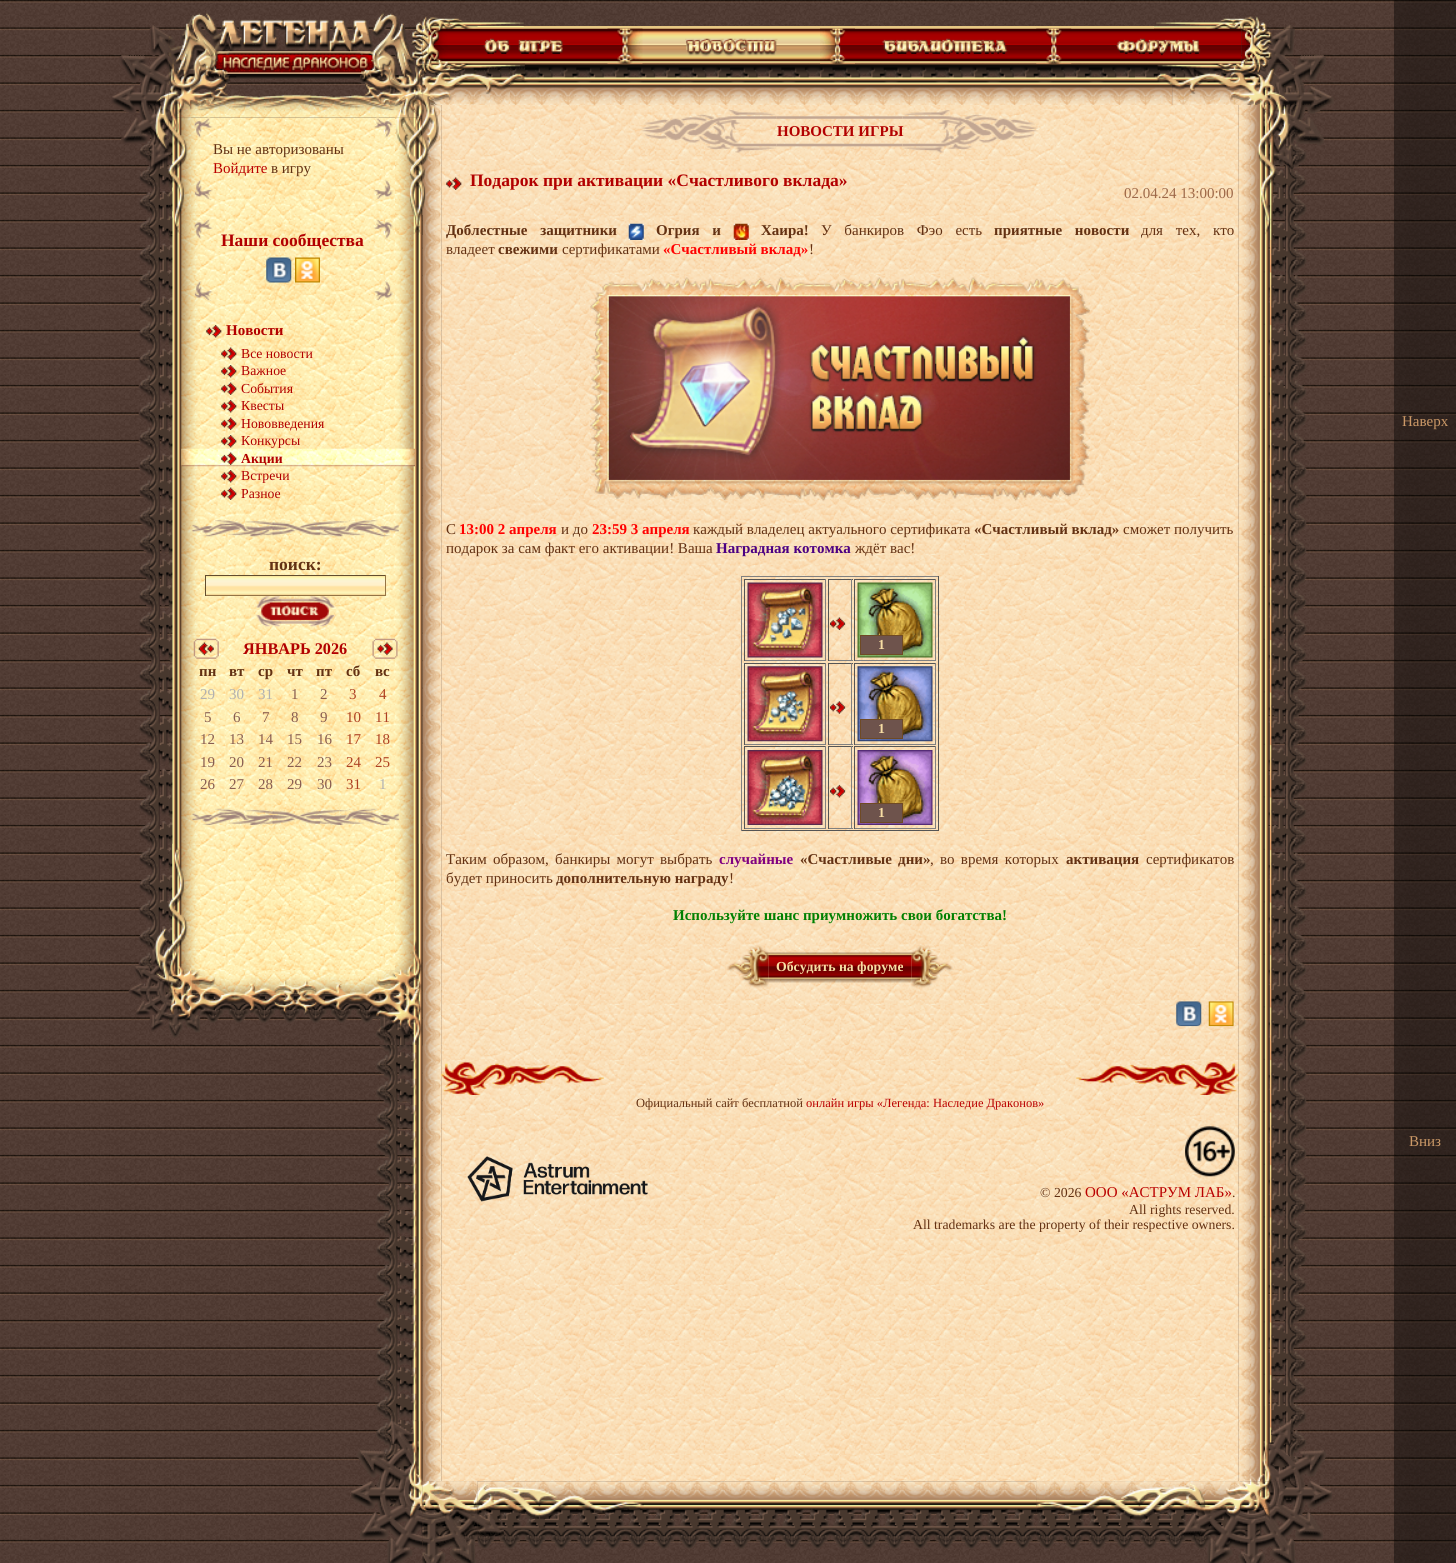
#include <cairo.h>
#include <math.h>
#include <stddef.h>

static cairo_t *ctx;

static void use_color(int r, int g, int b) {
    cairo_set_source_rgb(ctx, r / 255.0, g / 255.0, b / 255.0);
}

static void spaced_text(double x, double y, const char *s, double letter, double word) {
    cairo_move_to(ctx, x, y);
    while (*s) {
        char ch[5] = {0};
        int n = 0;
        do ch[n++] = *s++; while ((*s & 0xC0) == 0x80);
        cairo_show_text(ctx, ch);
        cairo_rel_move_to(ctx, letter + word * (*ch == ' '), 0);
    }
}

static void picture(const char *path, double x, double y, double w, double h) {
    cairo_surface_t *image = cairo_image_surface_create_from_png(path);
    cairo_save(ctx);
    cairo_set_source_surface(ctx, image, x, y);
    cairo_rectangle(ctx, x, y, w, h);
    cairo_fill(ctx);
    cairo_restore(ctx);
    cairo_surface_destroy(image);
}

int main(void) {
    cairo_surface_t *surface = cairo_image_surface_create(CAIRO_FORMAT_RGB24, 1456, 1563);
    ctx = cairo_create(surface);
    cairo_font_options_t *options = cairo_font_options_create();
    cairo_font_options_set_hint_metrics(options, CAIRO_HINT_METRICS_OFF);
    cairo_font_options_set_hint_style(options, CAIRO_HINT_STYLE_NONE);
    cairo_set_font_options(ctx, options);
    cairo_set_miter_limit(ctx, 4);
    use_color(255, 255, 255);
    cairo_paint(ctx);
    picture("img1.png", 0, 0, 1456, 1563);
    picture("img3.png", 138, 188, 31, 814);
    picture("img7.png", 168, 117, 255, 877);
    picture("img2.png", 110, 25, 59, 164);
    picture("img4.png", 128, 928, 41, 74);
    picture("img5.png", 136, 1001, 33, 31);
    picture("img9.png", 193, 117, 200, 83);
    use_color(231, 200, 132);
    cairo_rectangle(ctx, 422, 26, 732, 3);
    cairo_fill(ctx);
    picture("img39.png", 428, 28, 197, 36);
    picture("img43.png", 625, 28, 213, 36);
    picture("img47.png", 837, 28, 217, 36);
    picture("img51.png", 1053, 28, 189, 36);
    picture("img55.png", 422, 63, 713, 22);
    picture("img58.png", 422, 85, 751, 20);
    picture("img33.png", 376, 1045, 47, 462);
    picture("img62.png", 422, 105, 20, 1377);
    picture("img6.png", 168, 12, 255, 106);
    picture("img8.png", 168, 117, 24, 118);
    cairo_select_font_face(ctx, "Liberation Serif", CAIRO_FONT_SLANT_NORMAL, CAIRO_FONT_WEIGHT_NORMAL);
    cairo_set_font_size(ctx, 15);
    use_color(99, 49, 19);
    cairo_move_to(ctx, 213, 154);
    cairo_show_text(ctx, "Вы не авторизованы");
    use_color(186, 0, 0);
    cairo_move_to(ctx, 213, 173);
    cairo_show_text(ctx, "Войдите");
    use_color(99, 49, 19);
    cairo_move_to(ctx, 271, 173);
    cairo_show_text(ctx, "в игру");
    picture("img10.png", 194, 218, 199, 83);
    cairo_select_font_face(ctx, "Liberation Serif", CAIRO_FONT_SLANT_NORMAL, CAIRO_FONT_WEIGHT_BOLD);
    cairo_set_font_size(ctx, 17.5);
    use_color(178, 0, 0);
    cairo_move_to(ctx, 221, 246);
    cairo_show_text(ctx, "Наши сообщества");
    picture("img11.png", 266, 257, 26, 26);
    picture("img12.png", 295, 257, 25, 26);
    picture("img13.png", 395, 117, 28, 118);
    picture("img14.png", 206, 325, 16, 13);
    cairo_set_font_size(ctx, 15);
    cairo_move_to(ctx, 226, 335);
    cairo_show_text(ctx, "Новости");
    picture("img15.png", 221, 347, 16, 13);
    cairo_select_font_face(ctx, "Liberation Serif", CAIRO_FONT_SLANT_NORMAL, CAIRO_FONT_WEIGHT_NORMAL);
    cairo_set_font_size(ctx, 13.75);
    cairo_move_to(ctx, 241, 358);
    cairo_show_text(ctx, "Все новости");
    picture("img16.png", 221, 365, 16, 13);
    cairo_move_to(ctx, 241, 375);
    cairo_show_text(ctx, "Важное");
    picture("img17.png", 221, 382, 16, 13);
    cairo_move_to(ctx, 241, 393);
    cairo_show_text(ctx, "События");
    picture("img18.png", 221, 400, 16, 13);
    cairo_move_to(ctx, 241, 410);
    cairo_show_text(ctx, "Квесты");
    picture("img19.png", 221, 417, 16, 13);
    cairo_move_to(ctx, 241, 428);
    cairo_show_text(ctx, "Нововведения");
    picture("img20.png", 221, 435, 16, 13);
    cairo_move_to(ctx, 241, 445);
    cairo_show_text(ctx, "Конкурсы");
    picture("img21.png", 181, 448, 234, 19);
    picture("img22.png", 221, 452, 16, 13);
    cairo_select_font_face(ctx, "Liberation Serif", CAIRO_FONT_SLANT_NORMAL, CAIRO_FONT_WEIGHT_BOLD);
    cairo_move_to(ctx, 241, 463);
    cairo_show_text(ctx, "Акции");
    picture("img16.png", 221, 470, 16, 13);
    cairo_select_font_face(ctx, "Liberation Serif", CAIRO_FONT_SLANT_NORMAL, CAIRO_FONT_WEIGHT_NORMAL);
    cairo_move_to(ctx, 241, 480);
    cairo_show_text(ctx, "Встречи");
    picture("img17.png", 221, 487, 16, 13);
    cairo_move_to(ctx, 241, 498);
    cairo_show_text(ctx, "Разное");
    picture("img23.png", 192, 520, 207, 17);
    cairo_select_font_face(ctx, "Liberation Serif", CAIRO_FONT_SLANT_NORMAL, CAIRO_FONT_WEIGHT_BOLD);
    cairo_set_font_size(ctx, 17.5);
    use_color(99, 49, 19);
    cairo_move_to(ctx, 269, 570);
    cairo_show_text(ctx, "поиск:");
    picture("img24.png", 205, 575, 182, 22);
    use_color(99, 77, 46);
    cairo_rectangle(ctx, 205, 575, 181, 1);
    cairo_fill(ctx);
    use_color(149, 116, 69);
    cairo_rectangle(ctx, 385, 575, 1, 21);
    cairo_fill(ctx);
    cairo_rectangle(ctx, 205, 595, 181, 1);
    cairo_fill(ctx);
    use_color(99, 77, 46);
    cairo_rectangle(ctx, 205, 575, 1, 21);
    cairo_fill(ctx);
    picture("img25.png", 256, 596, 79, 31);
    picture("img26.png", 193, 638, 26, 21);
    cairo_set_font_size(ctx, 16.25);
    use_color(178, 0, 0);
    cairo_move_to(ctx, 243, 654);
    cairo_show_text(ctx, "ЯНВАРЬ 2026");
    picture("img27.png", 372, 638, 26, 21);
    cairo_set_font_size(ctx, 15);
    use_color(99, 49, 19);
    cairo_move_to(ctx, 199, 676);
    cairo_show_text(ctx, "пн");
    cairo_move_to(ctx, 229, 676);
    cairo_show_text(ctx, "вт");
    cairo_move_to(ctx, 258, 676);
    cairo_show_text(ctx, "ср");
    cairo_move_to(ctx, 287, 676);
    cairo_show_text(ctx, "чт");
    cairo_move_to(ctx, 316, 676);
    cairo_show_text(ctx, "пт");
    cairo_move_to(ctx, 346, 676);
    cairo_show_text(ctx, "сб");
    cairo_move_to(ctx, 375, 676);
    cairo_show_text(ctx, "вс");
    cairo_select_font_face(ctx, "Liberation Serif", CAIRO_FONT_SLANT_NORMAL, CAIRO_FONT_WEIGHT_NORMAL);
    use_color(177, 177, 177);
    cairo_move_to(ctx, 200, 699);
    cairo_show_text(ctx, "29");
    cairo_move_to(ctx, 229, 699);
    cairo_show_text(ctx, "30");
    cairo_move_to(ctx, 258, 699);
    cairo_show_text(ctx, "31");
    use_color(137, 93, 81);
    cairo_move_to(ctx, 291, 699);
    cairo_show_text(ctx, "1");
    cairo_move_to(ctx, 320, 699);
    cairo_show_text(ctx, "2");
    use_color(174, 64, 34);
    cairo_move_to(ctx, 349, 699);
    cairo_show_text(ctx, "3");
    cairo_move_to(ctx, 379, 699);
    cairo_show_text(ctx, "4");
    use_color(137, 93, 81);
    cairo_move_to(ctx, 204, 722);
    cairo_show_text(ctx, "5");
    cairo_move_to(ctx, 233, 722);
    cairo_show_text(ctx, "6");
    cairo_move_to(ctx, 262, 722);
    cairo_show_text(ctx, "7");
    cairo_move_to(ctx, 291, 722);
    cairo_show_text(ctx, "8");
    cairo_move_to(ctx, 320, 722);
    cairo_show_text(ctx, "9");
    use_color(174, 64, 34);
    cairo_move_to(ctx, 346, 722);
    cairo_show_text(ctx, "10");
    cairo_move_to(ctx, 375, 722);
    cairo_show_text(ctx, "11");
    use_color(137, 93, 81);
    cairo_move_to(ctx, 200, 744);
    cairo_show_text(ctx, "12");
    cairo_move_to(ctx, 229, 744);
    cairo_show_text(ctx, "13");
    cairo_move_to(ctx, 258, 744);
    cairo_show_text(ctx, "14");
    cairo_move_to(ctx, 287, 744);
    cairo_show_text(ctx, "15");
    cairo_move_to(ctx, 317, 744);
    cairo_show_text(ctx, "16");
    use_color(174, 64, 34);
    cairo_move_to(ctx, 346, 744);
    cairo_show_text(ctx, "17");
    cairo_move_to(ctx, 375, 744);
    cairo_show_text(ctx, "18");
    use_color(137, 93, 81);
    cairo_move_to(ctx, 200, 767);
    cairo_show_text(ctx, "19");
    cairo_move_to(ctx, 229, 767);
    cairo_show_text(ctx, "20");
    cairo_move_to(ctx, 258, 767);
    cairo_show_text(ctx, "21");
    cairo_move_to(ctx, 287, 767);
    cairo_show_text(ctx, "22");
    cairo_move_to(ctx, 317, 767);
    cairo_show_text(ctx, "23");
    use_color(174, 64, 34);
    cairo_move_to(ctx, 346, 767);
    cairo_show_text(ctx, "24");
    cairo_move_to(ctx, 375, 767);
    cairo_show_text(ctx, "25");
    use_color(137, 93, 81);
    cairo_move_to(ctx, 200, 789);
    cairo_show_text(ctx, "26");
    cairo_move_to(ctx, 229, 789);
    cairo_show_text(ctx, "27");
    cairo_move_to(ctx, 258, 789);
    cairo_show_text(ctx, "28");
    cairo_move_to(ctx, 287, 789);
    cairo_show_text(ctx, "29");
    cairo_move_to(ctx, 317, 789);
    cairo_show_text(ctx, "30");
    use_color(174, 64, 34);
    cairo_move_to(ctx, 346, 789);
    cairo_show_text(ctx, "31");
    use_color(177, 177, 177);
    cairo_move_to(ctx, 379, 789);
    cairo_show_text(ctx, "1");
    picture("img28.png", 192, 808, 207, 17);
    picture("img30.png", 191, 970, 204, 24);
    picture("img29.png", 168, 843, 24, 151);
    picture("img31.png", 395, 843, 28, 151);
    picture("img32.png", 168, 993, 255, 52);
    picture("img64.png", 441, 105, 798, 1377);
    picture("img93.png", 422, 1481, 56, 56);
    picture("img34.png", 351, 1421, 72, 86);
    picture("img35.png", 360, 1506, 63, 57);
    picture("img36.png", 422, 16, 102, 13);
    picture("img37.png", 1153, 16, 140, 13);
    picture("img38.png", 422, 28, 7, 36);
    picture("img40.png", 428, 28, 20, 36);
    picture("img41.png", 483, 38, 80, 16);
    picture("img42.png", 607, 28, 18, 36);
    picture("img44.png", 625, 28, 18, 36);
    picture("img45.png", 685, 38, 93, 19);
    picture("img46.png", 820, 28, 18, 36);
    picture("img48.png", 837, 28, 18, 36);
    picture("img49.png", 882, 38, 126, 16);
    picture("img50.png", 1036, 28, 18, 36);
    picture("img52.png", 1053, 28, 19, 36);
    picture("img53.png", 1116, 38, 85, 18);
    picture("img54.png", 1241, 28, 85, 36);
    picture("img56.png", 422, 63, 103, 22);
    picture("img57.png", 1135, 63, 190, 22);
    picture("img59.png", 422, 85, 88, 20);
    picture("img60.png", 1172, 85, 1, 20);
    picture("img61.png", 1172, 85, 162, 20);
    picture("img63.png", 422, 105, 18, 110);
    picture("img66.png", 776, 116, 127, 31);
    picture("img65.png", 641, 110, 136, 43);
    cairo_select_font_face(ctx, "Liberation Serif", CAIRO_FONT_SLANT_NORMAL, CAIRO_FONT_WEIGHT_BOLD);
    use_color(178, 0, 0);
    cairo_move_to(ctx, 777, 136);
    cairo_show_text(ctx, "НОВОСТИ ИГРЫ");
    picture("img67.png", 902, 110, 136, 43);
    picture("img68.png", 446, 177, 16, 13);
    cairo_set_font_size(ctx, 17.5);
    cairo_move_to(ctx, 470, 186);
    cairo_show_text(ctx, "Подарок при активации «Счастливого вклада»");
    cairo_select_font_face(ctx, "Liberation Serif", CAIRO_FONT_SLANT_NORMAL, CAIRO_FONT_WEIGHT_NORMAL);
    cairo_set_font_size(ctx, 15);
    use_color(157, 104, 72);
    cairo_move_to(ctx, 1124, 198);
    cairo_show_text(ctx, "02.04.24 13:00:00");
    cairo_select_font_face(ctx, "Liberation Serif", CAIRO_FONT_SLANT_NORMAL, CAIRO_FONT_WEIGHT_BOLD);
    use_color(99, 49, 19);
    spaced_text(446, 235, "Доблестные защитники", 0, 9);
    picture("img69.png", 628, 223, 16, 17);
    spaced_text(656, 235, "Огрия и", 0, 9);
    picture("img70.png", 733, 223, 16, 17);
    cairo_move_to(ctx, 761, 235);
    cairo_show_text(ctx, "Хаира!");
    cairo_select_font_face(ctx, "Liberation Serif", CAIRO_FONT_SLANT_NORMAL, CAIRO_FONT_WEIGHT_NORMAL);
    spaced_text(821, 235, "У банкиров Фэо есть", 0, 9);
    cairo_select_font_face(ctx, "Liberation Serif", CAIRO_FONT_SLANT_NORMAL, CAIRO_FONT_WEIGHT_BOLD);
    spaced_text(994, 235, "приятные новости", 0, 9);
    cairo_select_font_face(ctx, "Liberation Serif", CAIRO_FONT_SLANT_NORMAL, CAIRO_FONT_WEIGHT_NORMAL);
    spaced_text(1141, 235, "для тех,", 0, 9);
    cairo_move_to(ctx, 1213, 235);
    cairo_show_text(ctx, "кто");
    cairo_move_to(ctx, 446, 254);
    cairo_show_text(ctx, "владеет");
    cairo_select_font_face(ctx, "Liberation Serif", CAIRO_FONT_SLANT_NORMAL, CAIRO_FONT_WEIGHT_BOLD);
    cairo_move_to(ctx, 498, 254);
    cairo_show_text(ctx, "свежими");
    cairo_select_font_face(ctx, "Liberation Serif", CAIRO_FONT_SLANT_NORMAL, CAIRO_FONT_WEIGHT_NORMAL);
    cairo_move_to(ctx, 562, 254);
    cairo_show_text(ctx, "сертификатами");
    cairo_select_font_face(ctx, "Liberation Serif", CAIRO_FONT_SLANT_NORMAL, CAIRO_FONT_WEIGHT_BOLD);
    use_color(255, 0, 0);
    cairo_move_to(ctx, 663, 254);
    cairo_show_text(ctx, "«Счастливый вклад»");
    cairo_select_font_face(ctx, "Liberation Serif", CAIRO_FONT_SLANT_NORMAL, CAIRO_FONT_WEIGHT_NORMAL);
    use_color(99, 49, 19);
    cairo_move_to(ctx, 809, 254);
    cairo_show_text(ctx, "!");
    picture("img71.png", 590, 277, 500, 225);
    cairo_move_to(ctx, 446, 534);
    cairo_show_text(ctx, "С");
    cairo_select_font_face(ctx, "Liberation Serif", CAIRO_FONT_SLANT_NORMAL, CAIRO_FONT_WEIGHT_BOLD);
    use_color(255, 0, 0);
    cairo_move_to(ctx, 459, 534);
    cairo_show_text(ctx, "13:00 2 апреля");
    cairo_select_font_face(ctx, "Liberation Serif", CAIRO_FONT_SLANT_NORMAL, CAIRO_FONT_WEIGHT_NORMAL);
    use_color(99, 49, 19);
    cairo_move_to(ctx, 561, 534);
    cairo_show_text(ctx, "и до");
    cairo_select_font_face(ctx, "Liberation Serif", CAIRO_FONT_SLANT_NORMAL, CAIRO_FONT_WEIGHT_BOLD);
    use_color(255, 0, 0);
    cairo_move_to(ctx, 592, 534);
    cairo_show_text(ctx, "23:59 3 апреля");
    cairo_select_font_face(ctx, "Liberation Serif", CAIRO_FONT_SLANT_NORMAL, CAIRO_FONT_WEIGHT_NORMAL);
    use_color(99, 49, 19);
    cairo_move_to(ctx, 693, 534);
    cairo_show_text(ctx, "каждый владелец актуального сертификата");
    cairo_select_font_face(ctx, "Liberation Serif", CAIRO_FONT_SLANT_NORMAL, CAIRO_FONT_WEIGHT_BOLD);
    cairo_move_to(ctx, 974, 534);
    cairo_show_text(ctx, "«Счастливый вклад»");
    cairo_select_font_face(ctx, "Liberation Serif", CAIRO_FONT_SLANT_NORMAL, CAIRO_FONT_WEIGHT_NORMAL);
    cairo_move_to(ctx, 1123, 534);
    cairo_show_text(ctx, "сможет получить");
    cairo_move_to(ctx, 446, 553);
    cairo_show_text(ctx, "подарок за сам факт его активации! Ваша");
    cairo_select_font_face(ctx, "Liberation Serif", CAIRO_FONT_SLANT_NORMAL, CAIRO_FONT_WEIGHT_BOLD);
    use_color(75, 0, 130);
    cairo_move_to(ctx, 716, 553);
    cairo_show_text(ctx, "Наградная котомка");
    cairo_select_font_face(ctx, "Liberation Serif", CAIRO_FONT_SLANT_NORMAL, CAIRO_FONT_WEIGHT_NORMAL);
    use_color(99, 49, 19);
    cairo_move_to(ctx, 855, 553);
    cairo_show_text(ctx, "ждёт вас!");
    use_color(128, 128, 128);
    cairo_rectangle(ctx, 741, 576, 198, 1);
    cairo_fill(ctx);
    use_color(85, 85, 85);
    cairo_rectangle(ctx, 938, 576, 1, 255);
    cairo_fill(ctx);
    cairo_rectangle(ctx, 741, 830, 198, 1);
    cairo_fill(ctx);
    use_color(128, 128, 128);
    cairo_rectangle(ctx, 741, 576, 1, 255);
    cairo_fill(ctx);
    use_color(85, 85, 85);
    cairo_rectangle(ctx, 744, 579, 82, 1);
    cairo_fill(ctx);
    use_color(128, 128, 128);
    cairo_rectangle(ctx, 825, 579, 1, 82);
    cairo_fill(ctx);
    cairo_rectangle(ctx, 744, 660, 82, 1);
    cairo_fill(ctx);
    use_color(85, 85, 85);
    cairo_rectangle(ctx, 744, 579, 1, 82);
    cairo_fill(ctx);
    picture("img72.png", 747, 582, 76, 76);
    cairo_rectangle(ctx, 828, 579, 25, 1);
    cairo_fill(ctx);
    use_color(128, 128, 128);
    cairo_rectangle(ctx, 851, 579, 1, 82);
    cairo_fill(ctx);
    cairo_rectangle(ctx, 828, 660, 25, 1);
    cairo_fill(ctx);
    use_color(85, 85, 85);
    cairo_rectangle(ctx, 828, 579, 1, 82);
    cairo_fill(ctx);
    picture("img73.png", 830, 617, 16, 13);
    cairo_rectangle(ctx, 854, 579, 82, 1);
    cairo_fill(ctx);
    use_color(128, 128, 128);
    cairo_rectangle(ctx, 935, 579, 1, 82);
    cairo_fill(ctx);
    cairo_rectangle(ctx, 854, 660, 82, 1);
    cairo_fill(ctx);
    use_color(85, 85, 85);
    cairo_rectangle(ctx, 854, 579, 1, 82);
    cairo_fill(ctx);
    picture("img74.png", 857, 582, 76, 76);
    use_color(110, 83, 76);
    cairo_rectangle(ctx, 860.5, 635.5, 42, 19);
    cairo_fill_preserve(ctx);
    use_color(111, 74, 36);
    cairo_set_line_width(ctx, 1);
    cairo_stroke(ctx);
    cairo_select_font_face(ctx, "Liberation Serif", CAIRO_FONT_SLANT_NORMAL, CAIRO_FONT_WEIGHT_BOLD);
    cairo_set_font_size(ctx, 13.75);
    use_color(248, 222, 164);
    cairo_move_to(ctx, 878, 649);
    cairo_show_text(ctx, "1");
    use_color(85, 85, 85);
    cairo_rectangle(ctx, 744, 663, 82, 1);
    cairo_fill(ctx);
    use_color(128, 128, 128);
    cairo_rectangle(ctx, 825, 663, 1, 82);
    cairo_fill(ctx);
    cairo_rectangle(ctx, 744, 744, 82, 1);
    cairo_fill(ctx);
    use_color(85, 85, 85);
    cairo_rectangle(ctx, 744, 663, 1, 82);
    cairo_fill(ctx);
    picture("img75.png", 747, 666, 76, 76);
    cairo_rectangle(ctx, 828, 663, 25, 1);
    cairo_fill(ctx);
    use_color(128, 128, 128);
    cairo_rectangle(ctx, 851, 663, 1, 82);
    cairo_fill(ctx);
    cairo_rectangle(ctx, 828, 744, 25, 1);
    cairo_fill(ctx);
    use_color(85, 85, 85);
    cairo_rectangle(ctx, 828, 663, 1, 82);
    cairo_fill(ctx);
    picture("img76.png", 830, 701, 16, 13);
    cairo_rectangle(ctx, 854, 663, 82, 1);
    cairo_fill(ctx);
    use_color(128, 128, 128);
    cairo_rectangle(ctx, 935, 663, 1, 82);
    cairo_fill(ctx);
    cairo_rectangle(ctx, 854, 744, 82, 1);
    cairo_fill(ctx);
    use_color(85, 85, 85);
    cairo_rectangle(ctx, 854, 663, 1, 82);
    cairo_fill(ctx);
    picture("img77.png", 857, 666, 76, 76);
    use_color(110, 83, 76);
    cairo_rectangle(ctx, 860.5, 719.5, 42, 19);
    cairo_fill_preserve(ctx);
    use_color(111, 74, 36);
    cairo_stroke(ctx);
    use_color(248, 222, 164);
    cairo_move_to(ctx, 878, 733);
    cairo_show_text(ctx, "1");
    use_color(85, 85, 85);
    cairo_rectangle(ctx, 744, 746, 82, 1);
    cairo_fill(ctx);
    use_color(128, 128, 128);
    cairo_rectangle(ctx, 825, 746, 1, 83);
    cairo_fill(ctx);
    cairo_rectangle(ctx, 744, 828, 82, 1);
    cairo_fill(ctx);
    use_color(85, 85, 85);
    cairo_rectangle(ctx, 744, 746, 1, 83);
    cairo_fill(ctx);
    picture("img78.png", 747, 750, 76, 75);
    cairo_rectangle(ctx, 828, 746, 25, 1);
    cairo_fill(ctx);
    use_color(128, 128, 128);
    cairo_rectangle(ctx, 851, 746, 1, 83);
    cairo_fill(ctx);
    cairo_rectangle(ctx, 828, 828, 25, 1);
    cairo_fill(ctx);
    use_color(85, 85, 85);
    cairo_rectangle(ctx, 828, 746, 1, 83);
    cairo_fill(ctx);
    picture("img79.png", 830, 784, 16, 14);
    cairo_rectangle(ctx, 854, 746, 82, 1);
    cairo_fill(ctx);
    use_color(128, 128, 128);
    cairo_rectangle(ctx, 935, 746, 1, 83);
    cairo_fill(ctx);
    cairo_rectangle(ctx, 854, 828, 82, 1);
    cairo_fill(ctx);
    use_color(85, 85, 85);
    cairo_rectangle(ctx, 854, 746, 1, 83);
    cairo_fill(ctx);
    picture("img80.png", 857, 750, 76, 75);
    use_color(110, 83, 76);
    cairo_rectangle(ctx, 860.5, 803.5, 42, 19);
    cairo_fill_preserve(ctx);
    use_color(111, 74, 36);
    cairo_stroke(ctx);
    use_color(248, 222, 164);
    cairo_move_to(ctx, 878, 817);
    cairo_show_text(ctx, "1");
    cairo_select_font_face(ctx, "Liberation Serif", CAIRO_FONT_SLANT_NORMAL, CAIRO_FONT_WEIGHT_NORMAL);
    cairo_set_font_size(ctx, 15);
    use_color(99, 49, 19);
    spaced_text(446, 864, "Таким образом, банкиры могут выбрать", 0, 2.5);
    cairo_select_font_face(ctx, "Liberation Serif", CAIRO_FONT_SLANT_NORMAL, CAIRO_FONT_WEIGHT_BOLD);
    use_color(128, 0, 128);
    cairo_move_to(ctx, 719, 864);
    cairo_show_text(ctx, "случайные");
    use_color(99, 49, 19);
    spaced_text(800, 864, "«Счастливые дни»", 0, 2.5);
    cairo_select_font_face(ctx, "Liberation Serif", CAIRO_FONT_SLANT_NORMAL, CAIRO_FONT_WEIGHT_NORMAL);
    spaced_text(930, 864, ", во время которых", 0, 2.5);
    cairo_select_font_face(ctx, "Liberation Serif", CAIRO_FONT_SLANT_NORMAL, CAIRO_FONT_WEIGHT_BOLD);
    cairo_move_to(ctx, 1066, 864);
    cairo_show_text(ctx, "активация");
    cairo_select_font_face(ctx, "Liberation Serif", CAIRO_FONT_SLANT_NORMAL, CAIRO_FONT_WEIGHT_NORMAL);
    cairo_move_to(ctx, 1146, 864);
    cairo_show_text(ctx, "сертификатов");
    cairo_move_to(ctx, 446, 883);
    cairo_show_text(ctx, "будет приносить");
    cairo_select_font_face(ctx, "Liberation Serif", CAIRO_FONT_SLANT_NORMAL, CAIRO_FONT_WEIGHT_BOLD);
    cairo_move_to(ctx, 556, 883);
    cairo_show_text(ctx, "дополнительную награду");
    cairo_select_font_face(ctx, "Liberation Serif", CAIRO_FONT_SLANT_NORMAL, CAIRO_FONT_WEIGHT_NORMAL);
    cairo_move_to(ctx, 729, 883);
    cairo_show_text(ctx, "!");
    cairo_select_font_face(ctx, "Liberation Serif", CAIRO_FONT_SLANT_NORMAL, CAIRO_FONT_WEIGHT_BOLD);
    use_color(0, 128, 0);
    cairo_move_to(ctx, 673, 920);
    cairo_show_text(ctx, "Используйте шанс приумножить свои богатства!");
    picture("img81.png", 727, 945, 42, 43);
    picture("img82.png", 911, 945, 42, 43);
    picture("img83.png", 768, 952, 144, 31);
    cairo_set_font_size(ctx, 13.75);
    use_color(248, 222, 164);
    cairo_move_to(ctx, 776, 971);
    cairo_show_text(ctx, "Обсудить на форуме");
    picture("img84.png", 1176, 1001, 26, 26);
    picture("img85.png", 1208, 1001, 26, 26);
    picture("img86.png", 441, 1062, 163, 33);
    picture("img90.png", 1238, 105, 69, 1377);
    picture("img87.png", 1076, 1062, 163, 33);
    cairo_select_font_face(ctx, "Liberation Serif", CAIRO_FONT_SLANT_NORMAL, CAIRO_FONT_WEIGHT_NORMAL);
    cairo_set_font_size(ctx, 12.5);
    use_color(99, 49, 19);
    cairo_move_to(ctx, 636, 1107);
    cairo_show_text(ctx, "Официальный сайт бесплатной");
    use_color(186, 0, 0);
    cairo_move_to(ctx, 806, 1107);
    cairo_show_text(ctx, "онлайн игры «Легенда: Наследие Драконов»");
    picture("img88.png", 467, 1156, 181, 46);
    picture("img89.png", 1185, 1126, 50, 51);
    cairo_set_font_size(ctx, 13.75);
    use_color(99, 49, 19);
    cairo_move_to(ctx, 1040, 1197);
    cairo_show_text(ctx, "© 2026");
    cairo_set_font_size(ctx, 15);
    use_color(186, 0, 0);
    cairo_move_to(ctx, 1085, 1197);
    cairo_show_text(ctx, "ООО «АСТРУМ ЛАБ»");
    cairo_set_font_size(ctx, 13.75);
    use_color(99, 49, 19);
    cairo_move_to(ctx, 1232, 1197);
    cairo_show_text(ctx, ".");
    cairo_move_to(ctx, 1129, 1214);
    cairo_show_text(ctx, "All rights reserved.");
    cairo_move_to(ctx, 913, 1229);
    cairo_show_text(ctx, "All trademarks are the property of their respective owners.");
    picture("img91.png", 1257, 105, 70, 135);
    picture("img92.png", 1240, 1406, 86, 76);
    picture("img95.png", 477, 1481, 560, 68);
    picture("img94.png", 422, 1481, 56, 82);
    picture("img96.png", 477, 1484, 167, 53);
    picture("img97.png", 1036, 1481, 204, 28);
    picture("img98.png", 1036, 1481, 204, 28);
    picture("img99.png", 1240, 1481, 92, 28);
    picture("img100.png", 1036, 1508, 204, 55);
    picture("img101.png", 1240, 1508, 83, 55);
    cairo_set_source_rgba(ctx, 0, 0, 0, 0.4);
    cairo_rectangle(ctx, 1394, 0, 62, 783);
    cairo_fill(ctx);
    cairo_set_font_size(ctx, 15);
    use_color(204, 153, 103);
    cairo_move_to(ctx, 1402, 426);
    cairo_show_text(ctx, "Наверх");
    cairo_set_source_rgba(ctx, 0, 0, 0, 0.4);
    cairo_rectangle(ctx, 1394, 783, 62, 780);
    cairo_fill(ctx);
    use_color(204, 153, 103);
    cairo_move_to(ctx, 1409, 1146);
    cairo_show_text(ctx, "Вниз");
    cairo_surface_write_to_png(surface, "result.png");
    cairo_font_options_destroy(options);
    cairo_destroy(ctx);
    cairo_surface_destroy(surface);
    return 0;
}
